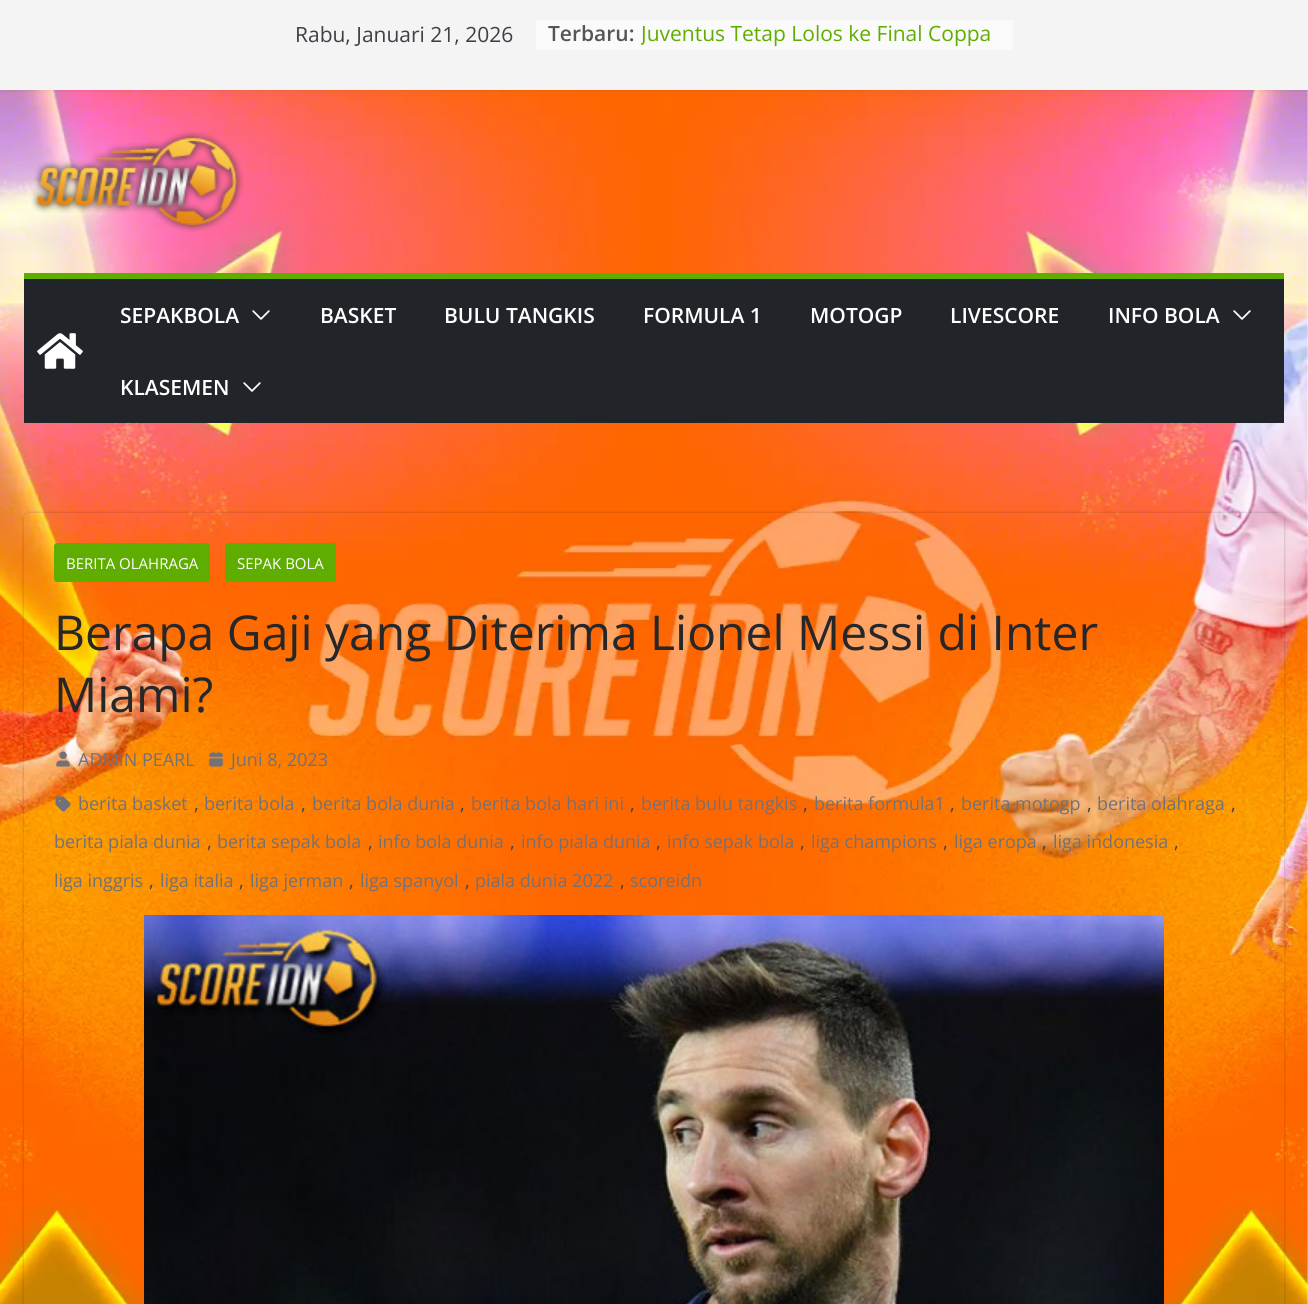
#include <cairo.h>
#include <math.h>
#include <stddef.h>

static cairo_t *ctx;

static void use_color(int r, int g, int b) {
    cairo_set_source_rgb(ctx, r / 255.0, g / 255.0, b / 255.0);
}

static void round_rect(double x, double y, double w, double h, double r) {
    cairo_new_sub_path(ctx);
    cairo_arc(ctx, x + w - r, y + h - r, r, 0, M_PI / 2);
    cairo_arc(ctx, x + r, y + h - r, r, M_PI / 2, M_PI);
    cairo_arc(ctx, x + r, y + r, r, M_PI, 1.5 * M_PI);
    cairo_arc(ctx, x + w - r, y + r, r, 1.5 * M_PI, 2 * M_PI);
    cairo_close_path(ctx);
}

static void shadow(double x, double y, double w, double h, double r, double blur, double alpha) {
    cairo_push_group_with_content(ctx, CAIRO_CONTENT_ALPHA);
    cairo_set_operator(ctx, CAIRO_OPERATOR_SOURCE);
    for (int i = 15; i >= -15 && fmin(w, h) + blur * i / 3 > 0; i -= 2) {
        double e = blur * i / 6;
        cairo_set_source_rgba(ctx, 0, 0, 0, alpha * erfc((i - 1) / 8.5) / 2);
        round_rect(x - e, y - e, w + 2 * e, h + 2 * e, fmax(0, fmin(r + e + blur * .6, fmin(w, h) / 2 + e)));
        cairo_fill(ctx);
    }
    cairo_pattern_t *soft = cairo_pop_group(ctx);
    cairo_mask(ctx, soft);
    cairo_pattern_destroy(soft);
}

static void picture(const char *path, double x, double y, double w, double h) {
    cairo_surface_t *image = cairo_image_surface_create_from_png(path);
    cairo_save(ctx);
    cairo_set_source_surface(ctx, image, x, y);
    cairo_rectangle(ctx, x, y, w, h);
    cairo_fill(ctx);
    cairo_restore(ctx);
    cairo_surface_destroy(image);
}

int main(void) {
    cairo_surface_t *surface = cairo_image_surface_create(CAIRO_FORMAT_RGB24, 1308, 1304);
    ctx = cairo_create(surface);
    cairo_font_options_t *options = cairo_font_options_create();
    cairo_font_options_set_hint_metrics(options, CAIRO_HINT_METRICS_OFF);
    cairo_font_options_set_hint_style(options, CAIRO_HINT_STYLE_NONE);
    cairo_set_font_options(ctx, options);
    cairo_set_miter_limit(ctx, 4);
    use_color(255, 255, 255);
    cairo_paint(ctx);
    picture("img1.png", 0, 90, 1308, 1214);
    use_color(0, 0, 0);
    shadow(0, 0, 1308, 90, 0, 1.5, 0.1);
    use_color(244, 244, 245);
    cairo_rectangle(ctx, 0, 0, 1308, 90);
    cairo_fill(ctx);
    cairo_select_font_face(ctx, "Open Sans", CAIRO_FONT_SLANT_NORMAL, CAIRO_FONT_WEIGHT_NORMAL);
    cairo_set_font_size(ctx, 21);
    use_color(63, 63, 70);
    cairo_move_to(ctx, 295, 42);
    cairo_show_text(ctx, "Rabu, Januari 21, 2026");
    use_color(250, 250, 250);
    cairo_rectangle(ctx, 536, 20, 477, 30);
    cairo_fill(ctx);
    cairo_select_font_face(ctx, "Open Sans SemiBold", CAIRO_FONT_SLANT_NORMAL, CAIRO_FONT_WEIGHT_NORMAL);
    use_color(85, 85, 85);
    cairo_move_to(ctx, 548, 41);
    cairo_show_text(ctx, "Terbaru:");
    cairo_save(ctx);
    cairo_rectangle(ctx, 641, 20, 360, 30);
    cairo_clip(ctx);
    cairo_select_font_face(ctx, "Open Sans", CAIRO_FONT_SLANT_NORMAL, CAIRO_FONT_WEIGHT_NORMAL);
    use_color(95, 173, 0);
    cairo_move_to(ctx, 641, 41);
    cairo_show_text(ctx, "Juventus Tetap Lolos ke Final Coppa");
    cairo_restore(ctx);
    picture("img2.png", 31, 131, 213, 101);
    use_color(33, 37, 41);
    cairo_rectangle(ctx, 24, 279, 1260, 144);
    cairo_fill(ctx);
    use_color(95, 173, 0);
    cairo_rectangle(ctx, 24, 273, 1260, 6);
    cairo_fill(ctx);
    picture("img3.png", 37, 333, 46, 36);
    use_color(255, 255, 255);
    cairo_move_to(ctx, 120, 323);
    cairo_show_text(ctx, "SEPAKBOLA");
    picture("img4.png", 252, 310, 18, 10);
    cairo_move_to(ctx, 320, 323);
    cairo_show_text(ctx, "BASKET");
    cairo_move_to(ctx, 444, 323);
    cairo_show_text(ctx, "BULU TANGKIS");
    cairo_move_to(ctx, 643, 323);
    cairo_show_text(ctx, "FORMULA 1");
    cairo_move_to(ctx, 810, 323);
    cairo_show_text(ctx, "MOTOGP");
    cairo_move_to(ctx, 950, 323);
    cairo_show_text(ctx, "LIVESCORE");
    cairo_move_to(ctx, 1108, 323);
    cairo_show_text(ctx, "INFO BOLA");
    picture("img4.png", 1233, 310, 18, 10);
    cairo_move_to(ctx, 120, 395);
    cairo_show_text(ctx, "KLASEMEN");
    picture("img4.png", 243, 382, 18, 10);
    cairo_save(ctx);
    cairo_set_fill_rule(ctx, CAIRO_FILL_RULE_EVEN_ODD);
    cairo_new_path(ctx);
    cairo_move_to(ctx, 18, 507);
    cairo_line_to(ctx, 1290, 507);
    cairo_line_to(ctx, 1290, 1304);
    cairo_line_to(ctx, 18, 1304);
    cairo_close_path(ctx);
    cairo_move_to(ctx, 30, 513);
    cairo_line_to(ctx, 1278, 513);
    cairo_curve_to(ctx, 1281.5, 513, 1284, 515.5, 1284, 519);
    cairo_line_to(ctx, 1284, 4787);
    cairo_curve_to(ctx, 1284, 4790.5, 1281.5, 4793, 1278, 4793);
    cairo_line_to(ctx, 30, 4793);
    cairo_curve_to(ctx, 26.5, 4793, 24, 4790.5, 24, 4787);
    cairo_line_to(ctx, 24, 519);
    cairo_curve_to(ctx, 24, 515.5, 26.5, 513, 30, 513);
    cairo_close_path(ctx);
    cairo_clip(ctx);
    use_color(0, 0, 0);
    shadow(24, 513, 1260, 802, 6, 1.5, 0.24);
    cairo_restore(ctx);
    use_color(95, 173, 0);
    round_rect(54, 543, 156, 39, 3);
    cairo_fill(ctx);
    cairo_select_font_face(ctx, "Open Sans", CAIRO_FONT_SLANT_NORMAL, CAIRO_FONT_WEIGHT_NORMAL);
    cairo_set_font_size(ctx, 15);
    use_color(255, 255, 255);
    cairo_move_to(ctx, 66, 569);
    cairo_show_text(ctx, "BERITA OLAHRAGA");
    use_color(95, 173, 0);
    round_rect(225, 543, 111, 39, 3);
    cairo_fill(ctx);
    use_color(255, 255, 255);
    cairo_move_to(ctx, 237, 569);
    cairo_show_text(ctx, "SEPAK BOLA");
    cairo_set_font_size(ctx, 48);
    use_color(39, 39, 42);
    cairo_move_to(ctx, 54, 650);
    cairo_show_text(ctx, "Berapa Gaji yang Diterima Lionel Messi di Inter");
    cairo_move_to(ctx, 54, 712);
    cairo_show_text(ctx, "Miami?");
    picture("img5.png", 56, 751, 14, 16);
    cairo_set_font_size(ctx, 18);
    use_color(113, 113, 122);
    cairo_move_to(ctx, 78, 766);
    cairo_show_text(ctx, "ADMIN PEARL");
    picture("img6.png", 209, 751, 14, 16);
    cairo_move_to(ctx, 231, 766);
    cairo_show_text(ctx, "Juni 8, 2023");
    picture("img7.png", 55, 796, 16, 16);
    cairo_move_to(ctx, 78, 810);
    cairo_show_text(ctx, "berita basket");
    use_color(63, 63, 70);
    cairo_move_to(ctx, 194, 810);
    cairo_show_text(ctx, ",");
    use_color(113, 113, 122);
    cairo_move_to(ctx, 204, 810);
    cairo_show_text(ctx, "berita bola");
    use_color(63, 63, 70);
    cairo_move_to(ctx, 301, 810);
    cairo_show_text(ctx, ",");
    use_color(113, 113, 122);
    cairo_move_to(ctx, 312, 810);
    cairo_show_text(ctx, "berita bola dunia");
    use_color(63, 63, 70);
    cairo_move_to(ctx, 460, 810);
    cairo_show_text(ctx, ",");
    use_color(113, 113, 122);
    cairo_move_to(ctx, 471, 810);
    cairo_show_text(ctx, "berita bola hari ini");
    use_color(63, 63, 70);
    cairo_move_to(ctx, 630, 810);
    cairo_show_text(ctx, ",");
    use_color(113, 113, 122);
    cairo_move_to(ctx, 641, 810);
    cairo_show_text(ctx, "berita bulu tangkis");
    use_color(63, 63, 70);
    cairo_move_to(ctx, 803, 810);
    cairo_show_text(ctx, ",");
    use_color(113, 113, 122);
    cairo_move_to(ctx, 814, 810);
    cairo_show_text(ctx, "berita formula1");
    use_color(63, 63, 70);
    cairo_move_to(ctx, 950, 810);
    cairo_show_text(ctx, ",");
    use_color(113, 113, 122);
    cairo_move_to(ctx, 961, 810);
    cairo_show_text(ctx, "berita motogp");
    use_color(63, 63, 70);
    cairo_move_to(ctx, 1087, 810);
    cairo_show_text(ctx, ",");
    use_color(113, 113, 122);
    cairo_move_to(ctx, 1097, 810);
    cairo_show_text(ctx, "berita olahraga");
    use_color(63, 63, 70);
    cairo_move_to(ctx, 1231, 810);
    cairo_show_text(ctx, ",");
    use_color(113, 113, 122);
    cairo_move_to(ctx, 54, 848);
    cairo_show_text(ctx, "berita piala dunia");
    use_color(63, 63, 70);
    cairo_move_to(ctx, 207, 848);
    cairo_show_text(ctx, ",");
    use_color(113, 113, 122);
    cairo_move_to(ctx, 217, 848);
    cairo_show_text(ctx, "berita sepak bola");
    use_color(63, 63, 70);
    cairo_move_to(ctx, 368, 848);
    cairo_show_text(ctx, ",");
    use_color(113, 113, 122);
    cairo_move_to(ctx, 378, 848);
    cairo_show_text(ctx, "info bola dunia");
    use_color(63, 63, 70);
    cairo_move_to(ctx, 510, 848);
    cairo_show_text(ctx, ",");
    use_color(113, 113, 122);
    cairo_move_to(ctx, 521, 848);
    cairo_show_text(ctx, "info piala dunia");
    use_color(63, 63, 70);
    cairo_move_to(ctx, 656, 848);
    cairo_show_text(ctx, ",");
    use_color(113, 113, 122);
    cairo_move_to(ctx, 667, 848);
    cairo_show_text(ctx, "info sepak bola");
    use_color(63, 63, 70);
    cairo_move_to(ctx, 800, 848);
    cairo_show_text(ctx, ",");
    use_color(113, 113, 122);
    cairo_move_to(ctx, 811, 848);
    cairo_show_text(ctx, "liga champions");
    use_color(63, 63, 70);
    cairo_move_to(ctx, 943, 848);
    cairo_show_text(ctx, ",");
    use_color(113, 113, 122);
    cairo_move_to(ctx, 954, 848);
    cairo_show_text(ctx, "liga eropa");
    use_color(63, 63, 70);
    cairo_move_to(ctx, 1042, 848);
    cairo_show_text(ctx, ",");
    use_color(113, 113, 122);
    cairo_move_to(ctx, 1053, 848);
    cairo_show_text(ctx, "liga indonesia");
    use_color(63, 63, 70);
    cairo_move_to(ctx, 1174, 848);
    cairo_show_text(ctx, ",");
    use_color(113, 113, 122);
    cairo_move_to(ctx, 54, 887);
    cairo_show_text(ctx, "liga inggris");
    use_color(63, 63, 70);
    cairo_move_to(ctx, 149, 887);
    cairo_show_text(ctx, ",");
    use_color(113, 113, 122);
    cairo_move_to(ctx, 160, 887);
    cairo_show_text(ctx, "liga italia");
    use_color(63, 63, 70);
    cairo_move_to(ctx, 239, 887);
    cairo_show_text(ctx, ",");
    use_color(113, 113, 122);
    cairo_move_to(ctx, 250, 887);
    cairo_show_text(ctx, "liga jerman");
    use_color(63, 63, 70);
    cairo_move_to(ctx, 349, 887);
    cairo_show_text(ctx, ",");
    use_color(113, 113, 122);
    cairo_move_to(ctx, 360, 887);
    cairo_show_text(ctx, "liga spanyol");
    use_color(63, 63, 70);
    cairo_move_to(ctx, 465, 887);
    cairo_show_text(ctx, ",");
    use_color(113, 113, 122);
    cairo_move_to(ctx, 475, 887);
    cairo_show_text(ctx, "piala dunia 2022");
    use_color(63, 63, 70);
    cairo_move_to(ctx, 620, 887);
    cairo_show_text(ctx, ",");
    use_color(113, 113, 122);
    cairo_move_to(ctx, 630, 887);
    cairo_show_text(ctx, "scoreidn");
    picture("img8.png", 144, 915, 1020, 389);
    cairo_surface_write_to_png(surface, "result.png");
    cairo_font_options_destroy(options);
    cairo_destroy(ctx);
    cairo_surface_destroy(surface);
    return 0;
}
